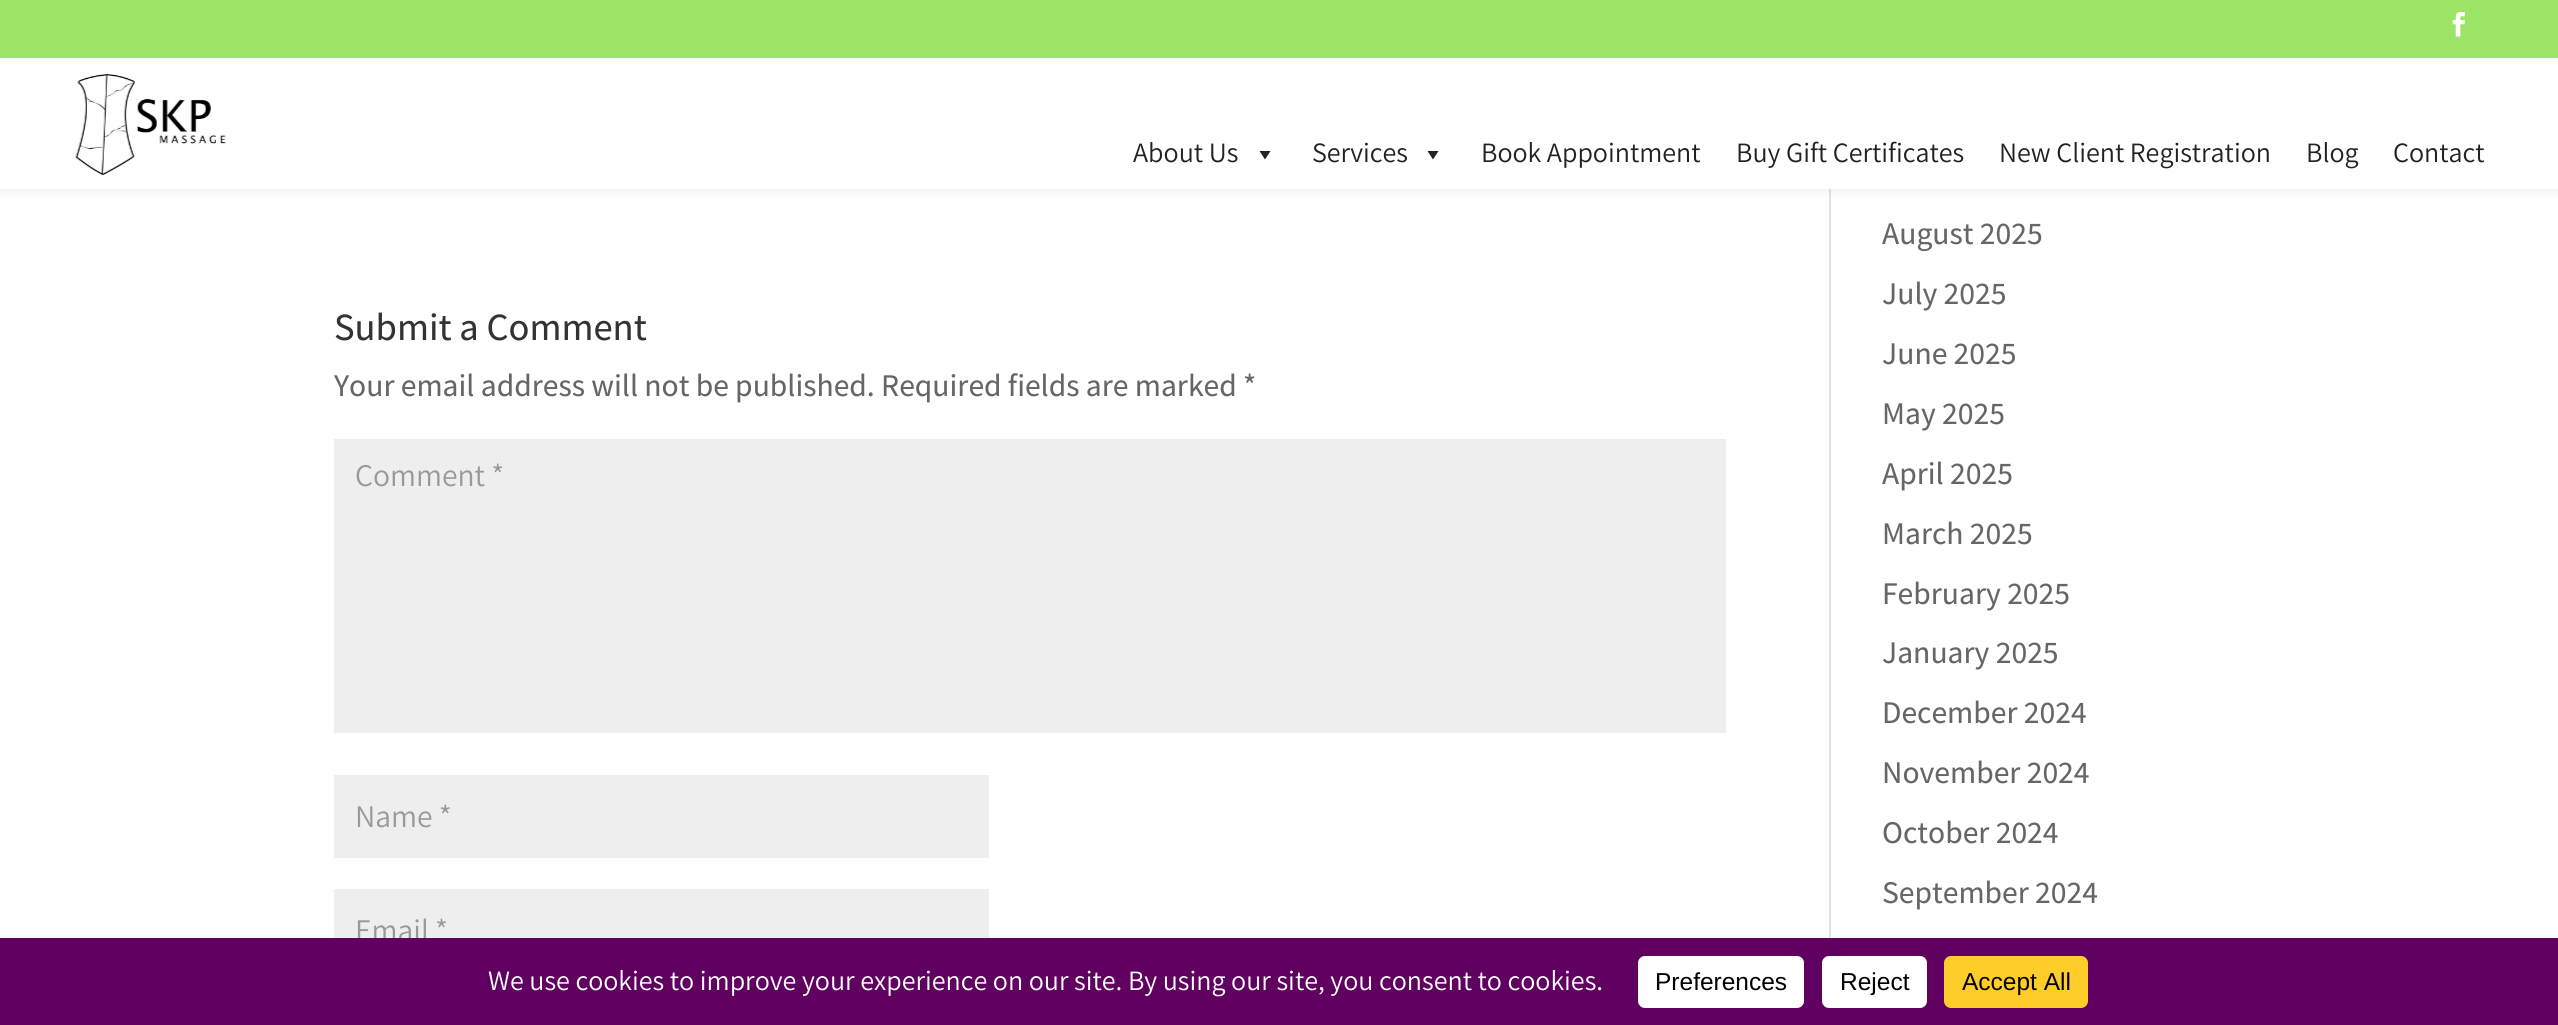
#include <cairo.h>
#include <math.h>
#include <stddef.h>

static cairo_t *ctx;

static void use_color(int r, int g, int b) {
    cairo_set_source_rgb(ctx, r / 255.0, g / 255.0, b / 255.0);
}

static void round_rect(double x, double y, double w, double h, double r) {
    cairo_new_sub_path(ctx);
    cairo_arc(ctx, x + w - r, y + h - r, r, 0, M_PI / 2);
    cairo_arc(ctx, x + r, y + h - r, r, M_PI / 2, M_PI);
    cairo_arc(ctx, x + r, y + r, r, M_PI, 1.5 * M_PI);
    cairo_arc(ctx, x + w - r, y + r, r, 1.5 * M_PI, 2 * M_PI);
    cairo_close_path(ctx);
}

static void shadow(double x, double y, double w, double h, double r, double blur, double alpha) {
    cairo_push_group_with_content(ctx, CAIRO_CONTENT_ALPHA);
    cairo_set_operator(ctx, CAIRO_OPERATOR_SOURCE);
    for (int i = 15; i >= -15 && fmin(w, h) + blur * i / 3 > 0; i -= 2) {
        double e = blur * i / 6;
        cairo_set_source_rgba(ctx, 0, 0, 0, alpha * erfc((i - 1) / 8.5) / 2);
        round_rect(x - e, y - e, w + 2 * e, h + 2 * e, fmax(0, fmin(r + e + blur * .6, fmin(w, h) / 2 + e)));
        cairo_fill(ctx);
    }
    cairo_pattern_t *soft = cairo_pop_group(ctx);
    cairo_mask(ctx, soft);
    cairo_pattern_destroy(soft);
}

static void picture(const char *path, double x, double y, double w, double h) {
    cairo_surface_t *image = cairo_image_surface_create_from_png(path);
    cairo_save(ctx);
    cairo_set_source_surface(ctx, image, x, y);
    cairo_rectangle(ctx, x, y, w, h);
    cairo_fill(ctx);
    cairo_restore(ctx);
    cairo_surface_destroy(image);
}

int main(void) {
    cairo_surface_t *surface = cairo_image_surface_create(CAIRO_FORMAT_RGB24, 2558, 1025);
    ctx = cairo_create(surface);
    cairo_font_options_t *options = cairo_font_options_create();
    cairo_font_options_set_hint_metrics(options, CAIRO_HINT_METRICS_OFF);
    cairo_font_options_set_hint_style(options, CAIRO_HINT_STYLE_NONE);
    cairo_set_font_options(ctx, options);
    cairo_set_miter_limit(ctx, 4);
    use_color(255, 255, 255);
    cairo_paint(ctx);
    use_color(226, 226, 226);
    cairo_rectangle(ctx, 1829, 189, 2, 749);
    cairo_fill(ctx);
    use_color(0, 0, 0);
    shadow(0, 58, 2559, 131, 0, 6, 0.1);
    use_color(155, 228, 102);
    cairo_rectangle(ctx, 0, 0, 2558, 58);
    cairo_fill(ctx);
    picture("img1.png", 2452, 12, 13, 25);
    use_color(255, 255, 255);
    cairo_rectangle(ctx, 0, 58, 2558, 131);
    cairo_fill(ctx);
    picture("img2.png", 75, 74, 151, 101);
    cairo_select_font_face(ctx, "Assistant", CAIRO_FONT_SLANT_NORMAL, CAIRO_FONT_WEIGHT_NORMAL);
    cairo_set_font_size(ctx, 28);
    use_color(34, 34, 34);
    cairo_move_to(ctx, 1133, 162);
    cairo_show_text(ctx, "About Us");
    cairo_new_path(ctx);
    cairo_move_to(ctx, 1270.5, 151);
    cairo_line_to(ctx, 1265, 159.5);
    cairo_line_to(ctx, 1259.5, 151);
    cairo_close_path(ctx);
    cairo_fill(ctx);
    cairo_move_to(ctx, 1312, 162);
    cairo_show_text(ctx, "Services");
    cairo_new_path(ctx);
    cairo_move_to(ctx, 1438.5, 151);
    cairo_line_to(ctx, 1433, 159.5);
    cairo_line_to(ctx, 1427.5, 151);
    cairo_close_path(ctx);
    cairo_fill(ctx);
    cairo_move_to(ctx, 1481, 162);
    cairo_show_text(ctx, "Book Appointment");
    cairo_move_to(ctx, 1736, 162);
    cairo_show_text(ctx, "Buy Gift Certificates");
    cairo_move_to(ctx, 1999, 162);
    cairo_show_text(ctx, "New Client Registration");
    cairo_move_to(ctx, 2306, 162);
    cairo_show_text(ctx, "Blog");
    cairo_move_to(ctx, 2393, 162);
    cairo_show_text(ctx, "Contact");
    cairo_select_font_face(ctx, "Assistant Medium", CAIRO_FONT_SLANT_NORMAL, CAIRO_FONT_WEIGHT_NORMAL);
    cairo_set_font_size(ctx, 38.5);
    use_color(51, 51, 51);
    cairo_move_to(ctx, 334, 340);
    cairo_show_text(ctx, "Submit a Comment");
    cairo_set_font_size(ctx, 31.5);
    use_color(102, 102, 102);
    cairo_move_to(ctx, 334, 396);
    cairo_show_text(ctx, "Your email address will not be published. Required fields are marked *");
    use_color(238, 238, 238);
    cairo_rectangle(ctx, 334, 439, 1392, 294);
    cairo_fill(ctx);
    cairo_select_font_face(ctx, "Assistant", CAIRO_FONT_SLANT_NORMAL, CAIRO_FONT_WEIGHT_NORMAL);
    use_color(153, 153, 153);
    cairo_move_to(ctx, 355, 486);
    cairo_show_text(ctx, "Comment *");
    use_color(238, 238, 238);
    cairo_rectangle(ctx, 334, 775, 655, 83);
    cairo_fill(ctx);
    use_color(153, 153, 153);
    cairo_move_to(ctx, 355, 827);
    cairo_show_text(ctx, "Name *");
    use_color(238, 238, 238);
    cairo_rectangle(ctx, 334, 889, 655, 49);
    cairo_fill(ctx);
    use_color(153, 153, 153);
    cairo_move_to(ctx, 355, 941);
    cairo_show_text(ctx, "Email *");
    cairo_select_font_face(ctx, "Assistant Medium", CAIRO_FONT_SLANT_NORMAL, CAIRO_FONT_WEIGHT_NORMAL);
    use_color(102, 102, 102);
    cairo_move_to(ctx, 1882, 244);
    cairo_show_text(ctx, "August 2025");
    cairo_move_to(ctx, 1882, 304);
    cairo_show_text(ctx, "July 2025");
    cairo_move_to(ctx, 1882, 364);
    cairo_show_text(ctx, "June 2025");
    cairo_move_to(ctx, 1882, 424);
    cairo_show_text(ctx, "May 2025");
    cairo_move_to(ctx, 1882, 484);
    cairo_show_text(ctx, "April 2025");
    cairo_move_to(ctx, 1882, 544);
    cairo_show_text(ctx, "March 2025");
    cairo_move_to(ctx, 1882, 604);
    cairo_show_text(ctx, "February 2025");
    cairo_move_to(ctx, 1882, 663);
    cairo_show_text(ctx, "January 2025");
    cairo_move_to(ctx, 1882, 723);
    cairo_show_text(ctx, "December 2024");
    cairo_move_to(ctx, 1882, 783);
    cairo_show_text(ctx, "November 2024");
    cairo_move_to(ctx, 1882, 843);
    cairo_show_text(ctx, "October 2024");
    cairo_move_to(ctx, 1882, 903);
    cairo_show_text(ctx, "September 2024");
    use_color(96, 0, 96);
    cairo_rectangle(ctx, 0, 938, 2558, 87);
    cairo_fill(ctx);
    cairo_select_font_face(ctx, "Assistant", CAIRO_FONT_SLANT_NORMAL, CAIRO_FONT_WEIGHT_NORMAL);
    cairo_set_font_size(ctx, 28);
    use_color(255, 255, 255);
    cairo_move_to(ctx, 488, 990);
    cairo_show_text(ctx, "We use cookies to improve your experience on our site. By using our site, you consent to cookies.");
    round_rect(1638, 956, 166, 52, 7);
    cairo_fill(ctx);
    cairo_select_font_face(ctx, "Liberation Sans", CAIRO_FONT_SLANT_NORMAL, CAIRO_FONT_WEIGHT_NORMAL);
    cairo_set_font_size(ctx, 24.5);
    use_color(0, 0, 0);
    cairo_move_to(ctx, 1655, 990);
    cairo_show_text(ctx, "Preferences");
    use_color(255, 255, 255);
    round_rect(1822, 956, 105, 52, 7);
    cairo_fill(ctx);
    use_color(0, 0, 0);
    cairo_move_to(ctx, 1840, 990);
    cairo_show_text(ctx, "Reject");
    use_color(255, 205, 42);
    round_rect(1944, 956, 144, 52, 7);
    cairo_fill(ctx);
    use_color(0, 0, 0);
    cairo_move_to(ctx, 1962, 990);
    cairo_show_text(ctx, "Accept All");
    cairo_surface_write_to_png(surface, "result.png");
    cairo_font_options_destroy(options);
    cairo_destroy(ctx);
    cairo_surface_destroy(surface);
    return 0;
}
